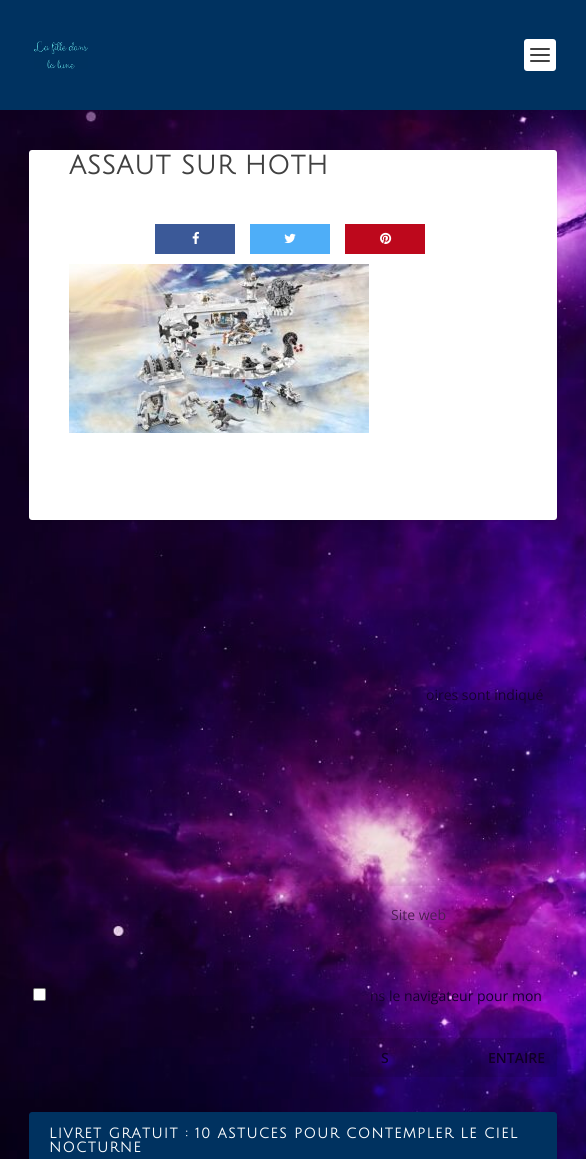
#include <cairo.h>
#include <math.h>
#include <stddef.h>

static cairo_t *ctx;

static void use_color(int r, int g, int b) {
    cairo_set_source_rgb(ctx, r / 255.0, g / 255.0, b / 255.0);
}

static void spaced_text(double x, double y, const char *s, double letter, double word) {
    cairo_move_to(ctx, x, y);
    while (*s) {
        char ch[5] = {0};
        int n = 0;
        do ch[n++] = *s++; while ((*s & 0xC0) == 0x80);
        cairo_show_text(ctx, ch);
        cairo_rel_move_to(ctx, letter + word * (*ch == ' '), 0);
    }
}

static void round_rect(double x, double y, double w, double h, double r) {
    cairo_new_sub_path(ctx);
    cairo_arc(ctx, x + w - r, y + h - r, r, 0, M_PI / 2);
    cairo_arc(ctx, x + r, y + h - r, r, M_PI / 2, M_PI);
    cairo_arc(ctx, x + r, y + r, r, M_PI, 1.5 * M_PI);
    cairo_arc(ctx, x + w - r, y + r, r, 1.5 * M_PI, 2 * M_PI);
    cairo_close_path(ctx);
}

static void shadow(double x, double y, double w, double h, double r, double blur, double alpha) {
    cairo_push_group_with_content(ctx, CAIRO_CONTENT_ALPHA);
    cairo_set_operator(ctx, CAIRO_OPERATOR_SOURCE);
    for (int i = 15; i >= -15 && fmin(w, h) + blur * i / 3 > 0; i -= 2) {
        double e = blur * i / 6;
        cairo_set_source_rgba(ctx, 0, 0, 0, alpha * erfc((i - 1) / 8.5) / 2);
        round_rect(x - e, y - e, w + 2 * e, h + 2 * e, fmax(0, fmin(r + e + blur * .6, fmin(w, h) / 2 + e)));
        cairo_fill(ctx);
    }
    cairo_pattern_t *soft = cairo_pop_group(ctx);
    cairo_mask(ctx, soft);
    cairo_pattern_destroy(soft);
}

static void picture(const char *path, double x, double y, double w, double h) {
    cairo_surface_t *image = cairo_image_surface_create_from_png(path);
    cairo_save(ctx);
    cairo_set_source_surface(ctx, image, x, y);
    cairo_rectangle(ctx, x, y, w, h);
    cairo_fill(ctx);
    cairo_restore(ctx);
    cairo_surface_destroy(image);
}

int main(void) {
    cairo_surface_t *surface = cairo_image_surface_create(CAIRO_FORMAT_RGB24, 586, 1159);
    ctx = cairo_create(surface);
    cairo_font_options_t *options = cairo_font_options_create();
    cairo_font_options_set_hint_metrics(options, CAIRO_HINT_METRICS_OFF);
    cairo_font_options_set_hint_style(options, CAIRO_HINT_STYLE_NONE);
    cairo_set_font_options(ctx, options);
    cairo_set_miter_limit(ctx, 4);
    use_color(255, 255, 255);
    cairo_paint(ctx);
    picture("img1.png", 0, 110, 586, 1049);
    use_color(0, 50, 96);
    cairo_rectangle(ctx, 0, 0, 586, 110);
    cairo_fill(ctx);
    picture("img2.png", 34, 41, 54, 28);
    use_color(255, 255, 255);
    round_rect(524, 39, 32, 32, 3);
    cairo_fill(ctx);
    use_color(64, 64, 64);
    round_rect(530, 48, 20, 2, 1);
    cairo_fill(ctx);
    round_rect(530, 54, 20, 2, 1);
    cairo_fill(ctx);
    round_rect(530, 60, 20, 2, 1);
    cairo_fill(ctx);
    use_color(0, 0, 0);
    shadow(29, 151, 528, 370, 3, 1.5, 0.1);
    use_color(255, 255, 255);
    round_rect(29, 150, 528, 370, 3);
    cairo_fill(ctx);
    cairo_select_font_face(ctx, "Julius Sans One", CAIRO_FONT_SLANT_NORMAL, CAIRO_FONT_WEIGHT_BOLD);
    cairo_set_font_size(ctx, 26);
    use_color(64, 64, 64);
    spaced_text(69, 174, "ASSAUT SUR HOTH", 0.5, 0);
    use_color(59, 89, 152);
    cairo_rectangle(ctx, 155, 224, 80, 30);
    cairo_fill(ctx);
    picture("img3.png", 192, 231, 7, 13);
    use_color(78, 174, 248);
    cairo_rectangle(ctx, 250, 224, 80, 30);
    cairo_fill(ctx);
    picture("img4.png", 284, 233, 12, 11);
    use_color(189, 8, 28);
    cairo_rectangle(ctx, 345, 224, 80, 30);
    cairo_fill(ctx);
    picture("img5.png", 380, 232, 12, 12);
    picture("img6.png", 69, 264, 300, 169);
    cairo_select_font_face(ctx, "Open Sans", CAIRO_FONT_SLANT_NORMAL, CAIRO_FONT_WEIGHT_NORMAL);
    cairo_set_font_size(ctx, 14);
    use_color(22, 1, 45);
    cairo_move_to(ctx, 426, 700);
    cairo_show_text(ctx, "oires sont indiqué");
    cairo_set_source_rgba(ctx, 0, 0, 0, 0.05);
    cairo_rectangle(ctx, 63, 750, 494, 136);
    cairo_fill(ctx);
    use_color(80, 28, 84);
    cairo_move_to(ctx, 391, 920);
    cairo_show_text(ctx, "Site web");
    cairo_set_source_rgba(ctx, 0, 0, 0, 0.05);
    cairo_rectangle(ctx, 391, 922, 166, 43);
    cairo_fill(ctx);
    cairo_rectangle(ctx, 45, 922, 150, 43);
    cairo_fill(ctx);
    cairo_rectangle(ctx, 215, 922, 156, 43);
    cairo_fill(ctx);
    use_color(255, 255, 255);
    round_rect(33.5, 988.5, 12, 12, 1.5);
    cairo_fill_preserve(ctx);
    use_color(118, 118, 118);
    cairo_set_line_width(ctx, 1);
    cairo_stroke(ctx);
    use_color(22, 1, 45);
    cairo_move_to(ctx, 370, 1001);
    cairo_show_text(ctx, "ns le navigateur pour mon");
    cairo_set_source_rgba(ctx, 0, 0, 0, 0.1);
    round_rect(349, 1038, 208, 39, 3);
    cairo_fill(ctx);
    cairo_select_font_face(ctx, "Open Sans SemiBold", CAIRO_FONT_SLANT_NORMAL, CAIRO_FONT_WEIGHT_NORMAL);
    use_color(15, 0, 37);
    cairo_move_to(ctx, 381, 1063);
    cairo_show_text(ctx, "S");
    cairo_move_to(ctx, 488, 1063);
    cairo_show_text(ctx, "ENTAIRE");
    use_color(0, 0, 0);
    shadow(29, 1113, 528, 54, 3, 1.5, 0.1);
    use_color(0, 50, 96);
    cairo_new_path(ctx);
    cairo_move_to(ctx, 32, 1112);
    cairo_line_to(ctx, 554, 1112);
    cairo_curve_to(ctx, 555.5, 1112, 557, 1113.5, 557, 1115);
    cairo_line_to(ctx, 557, 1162);
    cairo_line_to(ctx, 29, 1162);
    cairo_line_to(ctx, 29, 1115);
    cairo_curve_to(ctx, 29, 1113.5, 30.5, 1112, 32, 1112);
    cairo_close_path(ctx);
    cairo_fill(ctx);
    cairo_select_font_face(ctx, "Julius Sans One", CAIRO_FONT_SLANT_NORMAL, CAIRO_FONT_WEIGHT_BOLD);
    use_color(255, 255, 255);
    spaced_text(49, 1138, "LIVRET GRATUIT : 10 ASTUCES POUR CONTEMPLER LE CIEL", 1.2, 0);
    spaced_text(49, 1152, "NOCTURNE", 1.2, 0);
    cairo_surface_write_to_png(surface, "result.png");
    cairo_font_options_destroy(options);
    cairo_destroy(ctx);
    cairo_surface_destroy(surface);
    return 0;
}
